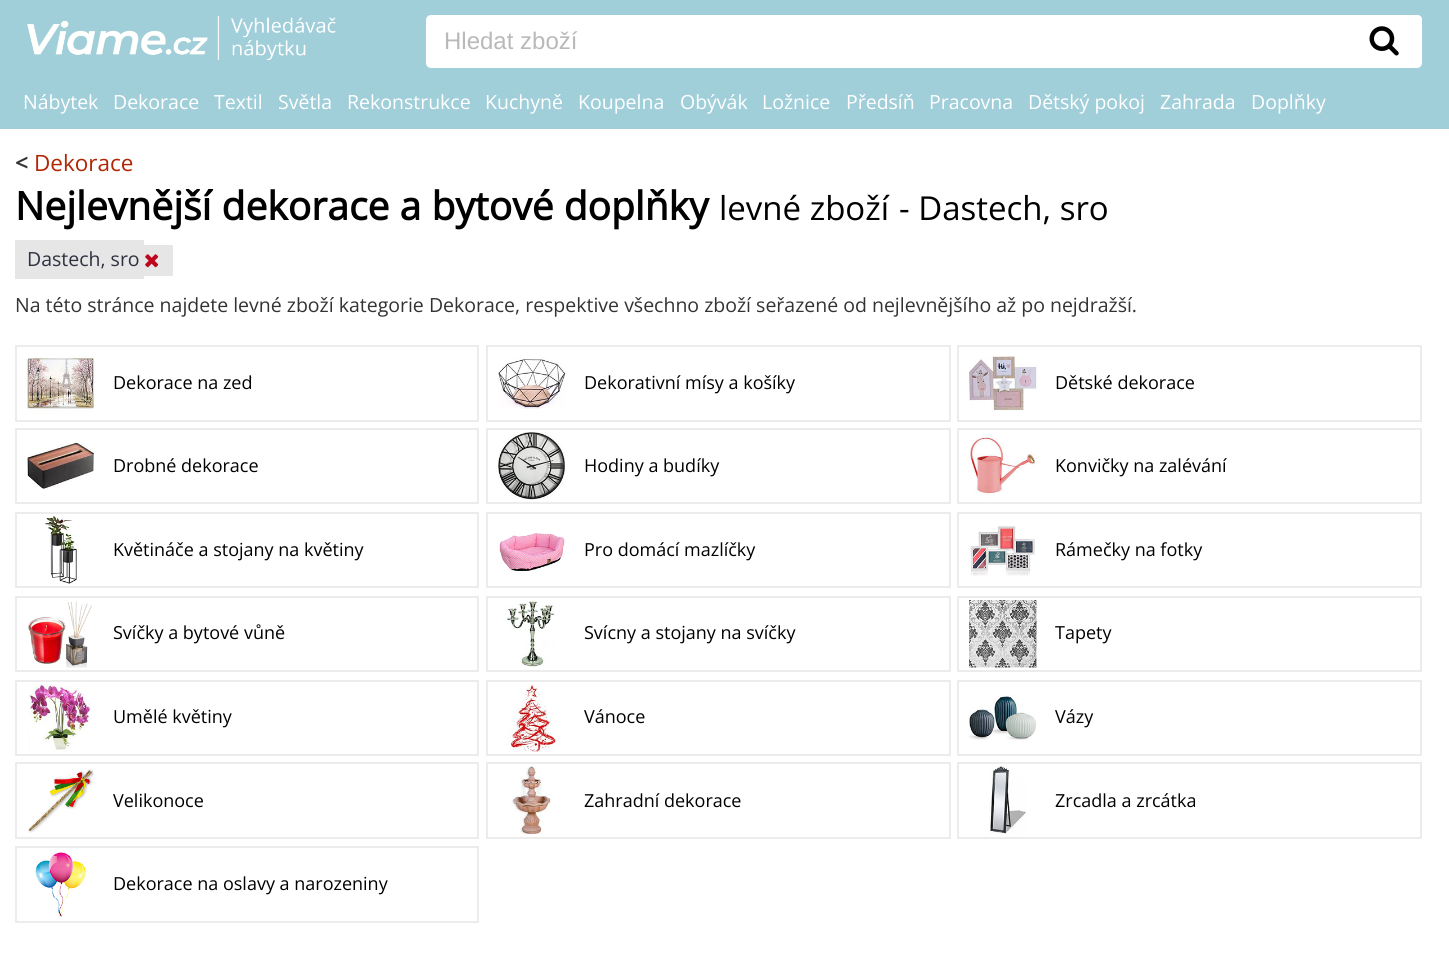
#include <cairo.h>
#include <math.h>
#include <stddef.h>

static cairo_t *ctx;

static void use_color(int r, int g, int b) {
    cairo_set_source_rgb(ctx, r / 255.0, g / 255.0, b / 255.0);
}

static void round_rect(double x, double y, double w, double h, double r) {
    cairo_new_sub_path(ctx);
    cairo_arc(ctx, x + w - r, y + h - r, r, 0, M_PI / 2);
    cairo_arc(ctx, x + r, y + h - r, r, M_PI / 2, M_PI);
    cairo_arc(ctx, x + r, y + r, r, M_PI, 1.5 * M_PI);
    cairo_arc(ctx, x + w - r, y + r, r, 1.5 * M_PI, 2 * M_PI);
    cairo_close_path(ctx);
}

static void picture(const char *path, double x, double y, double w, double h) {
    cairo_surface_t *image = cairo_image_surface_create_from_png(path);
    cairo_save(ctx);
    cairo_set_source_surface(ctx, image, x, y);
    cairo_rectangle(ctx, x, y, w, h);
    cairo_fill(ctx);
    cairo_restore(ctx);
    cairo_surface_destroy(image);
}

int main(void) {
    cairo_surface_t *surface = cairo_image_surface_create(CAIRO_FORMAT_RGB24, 1449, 953);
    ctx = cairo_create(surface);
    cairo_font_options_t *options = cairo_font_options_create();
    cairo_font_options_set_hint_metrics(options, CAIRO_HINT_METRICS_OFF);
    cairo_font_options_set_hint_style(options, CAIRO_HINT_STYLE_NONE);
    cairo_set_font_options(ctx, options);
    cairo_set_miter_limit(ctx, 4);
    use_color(255, 255, 255);
    cairo_paint(ctx);
    use_color(160, 206, 217);
    cairo_rectangle(ctx, 0, 0, 1449, 129);
    cairo_fill(ctx);
    picture("img1.png", 27, 16, 309, 44);
    use_color(255, 255, 255);
    round_rect(426, 15, 996, 53, 5);
    cairo_fill(ctx);
    cairo_select_font_face(ctx, "Liberation Sans", CAIRO_FONT_SLANT_NORMAL, CAIRO_FONT_WEIGHT_NORMAL);
    cairo_set_font_size(ctx, 24);
    use_color(185, 185, 185);
    cairo_move_to(ctx, 444, 49);
    cairo_show_text(ctx, "Hledat zboží");
    use_color(255, 255, 255);
    cairo_new_path(ctx);
    cairo_move_to(ctx, 1347, 15);
    cairo_line_to(ctx, 1417, 15);
    cairo_curve_to(ctx, 1420, 15, 1422, 17, 1422, 20);
    cairo_line_to(ctx, 1422, 61);
    cairo_curve_to(ctx, 1422, 64, 1420, 66, 1417, 66);
    cairo_line_to(ctx, 1347, 66);
    cairo_close_path(ctx);
    cairo_fill(ctx);
    picture("img2.png", 1369, 26, 30, 30);
    cairo_select_font_face(ctx, "Open Sans", CAIRO_FONT_SLANT_NORMAL, CAIRO_FONT_WEIGHT_NORMAL);
    cairo_set_font_size(ctx, 19.5);
    cairo_move_to(ctx, 23, 109);
    cairo_show_text(ctx, "Nábytek");
    cairo_move_to(ctx, 113, 109);
    cairo_show_text(ctx, "Dekorace");
    cairo_move_to(ctx, 214, 109);
    cairo_show_text(ctx, "Textil");
    cairo_move_to(ctx, 278, 109);
    cairo_show_text(ctx, "Světla");
    cairo_move_to(ctx, 347, 109);
    cairo_show_text(ctx, "Rekonstrukce");
    cairo_move_to(ctx, 485, 109);
    cairo_show_text(ctx, "Kuchyně");
    cairo_move_to(ctx, 578, 109);
    cairo_show_text(ctx, "Koupelna");
    cairo_move_to(ctx, 680, 109);
    cairo_show_text(ctx, "Obývák");
    cairo_move_to(ctx, 762, 109);
    cairo_show_text(ctx, "Ložnice");
    cairo_move_to(ctx, 846, 109);
    cairo_show_text(ctx, "Předsíň");
    cairo_move_to(ctx, 929, 109);
    cairo_show_text(ctx, "Pracovna");
    cairo_move_to(ctx, 1028, 109);
    cairo_show_text(ctx, "Dětský pokoj");
    cairo_move_to(ctx, 1160, 109);
    cairo_show_text(ctx, "Zahrada");
    cairo_move_to(ctx, 1251, 109);
    cairo_show_text(ctx, "Doplňky");
    cairo_select_font_face(ctx, "Open Sans", CAIRO_FONT_SLANT_NORMAL, CAIRO_FONT_WEIGHT_BOLD);
    cairo_set_font_size(ctx, 22.5);
    use_color(51, 51, 51);
    cairo_move_to(ctx, 15, 171);
    cairo_show_text(ctx, "<");
    cairo_select_font_face(ctx, "Open Sans", CAIRO_FONT_SLANT_NORMAL, CAIRO_FONT_WEIGHT_NORMAL);
    use_color(177, 39, 4);
    cairo_move_to(ctx, 34, 171);
    cairo_show_text(ctx, "Dekorace");
    cairo_select_font_face(ctx, "Open Sans", CAIRO_FONT_SLANT_NORMAL, CAIRO_FONT_WEIGHT_BOLD);
    cairo_set_font_size(ctx, 39);
    use_color(0, 0, 0);
    cairo_move_to(ctx, 15, 220);
    cairo_show_text(ctx, "Nejlevnější dekorace a bytové doplňky");
    cairo_select_font_face(ctx, "Open Sans", CAIRO_FONT_SLANT_NORMAL, CAIRO_FONT_WEIGHT_NORMAL);
    cairo_set_font_size(ctx, 33);
    cairo_move_to(ctx, 719, 220);
    cairo_show_text(ctx, "levné zboží");
    cairo_move_to(ctx, 899, 220);
    cairo_show_text(ctx, "- Dastech, sro");
    use_color(230, 230, 230);
    cairo_rectangle(ctx, 15, 240, 129, 39);
    cairo_fill(ctx);
    cairo_rectangle(ctx, 144, 245, 29, 31);
    cairo_fill(ctx);
    cairo_set_font_size(ctx, 19.5);
    use_color(46, 49, 64);
    cairo_move_to(ctx, 27, 266);
    cairo_show_text(ctx, "Dastech, sro");
    picture("img3.png", 145, 254, 14, 14);
    use_color(51, 51, 51);
    cairo_move_to(ctx, 15, 312);
    cairo_show_text(ctx, "Na této stránce najdete levné zboží kategorie Dekorace, respektive všechno zboží seřazené od nejlevnějšího až po nejdražší.");
    cairo_rectangle(ctx, 16, 346, 462, 75);
    use_color(236, 236, 236);
    cairo_stroke(ctx);
    picture("img4.png", 27, 355, 68, 56);
    cairo_save(ctx);
    cairo_rectangle(ctx, 113, 369, 139, 27);
    cairo_clip(ctx);
    cairo_set_font_size(ctx, 18);
    use_color(0, 0, 0);
    cairo_move_to(ctx, 113, 389);
    cairo_show_text(ctx, "Dekorace na zeď");
    cairo_restore(ctx);
    cairo_rectangle(ctx, 487, 346, 463, 75);
    cairo_stroke(ctx);
    picture("img5.png", 498, 358, 68, 51);
    cairo_set_font_size(ctx, 18);
    use_color(0, 0, 0);
    cairo_move_to(ctx, 584, 389);
    cairo_show_text(ctx, "Dekorativní mísy a košíky");
    cairo_rectangle(ctx, 958, 346, 463, 75);
    use_color(236, 236, 236);
    cairo_stroke(ctx);
    picture("img6.png", 969, 356, 68, 55);
    use_color(0, 0, 0);
    cairo_move_to(ctx, 1055, 389);
    cairo_show_text(ctx, "Dětské dekorace");
    cairo_rectangle(ctx, 16, 429, 462, 74);
    use_color(236, 236, 236);
    cairo_stroke(ctx);
    picture("img7.png", 27, 442, 68, 47);
    use_color(0, 0, 0);
    cairo_move_to(ctx, 113, 472);
    cairo_show_text(ctx, "Drobné dekorace");
    cairo_rectangle(ctx, 487, 429, 463, 74);
    use_color(236, 236, 236);
    cairo_stroke(ctx);
    picture("img8.png", 498, 432, 68, 68);
    use_color(0, 0, 0);
    cairo_move_to(ctx, 584, 472);
    cairo_show_text(ctx, "Hodiny a budíky");
    cairo_rectangle(ctx, 958, 429, 463, 74);
    use_color(236, 236, 236);
    cairo_stroke(ctx);
    picture("img9.png", 969, 434, 68, 63);
    use_color(0, 0, 0);
    cairo_move_to(ctx, 1055, 472);
    cairo_show_text(ctx, "Konvičky na zalévání");
    cairo_rectangle(ctx, 16, 513, 462, 74);
    use_color(236, 236, 236);
    cairo_stroke(ctx);
    picture("img10.png", 45, 516, 32, 68);
    use_color(0, 0, 0);
    cairo_move_to(ctx, 113, 556);
    cairo_show_text(ctx, "Květináče a stojany na květiny");
    cairo_rectangle(ctx, 487, 513, 463, 74);
    use_color(236, 236, 236);
    cairo_stroke(ctx);
    picture("img11.png", 499, 533, 66, 38);
    use_color(0, 0, 0);
    cairo_move_to(ctx, 584, 556);
    cairo_show_text(ctx, "Pro domácí mazlíčky");
    cairo_rectangle(ctx, 958, 513, 463, 74);
    use_color(236, 236, 236);
    cairo_stroke(ctx);
    picture("img12.png", 970, 526, 65, 50);
    use_color(0, 0, 0);
    cairo_move_to(ctx, 1055, 556);
    cairo_show_text(ctx, "Rámečky na fotky");
    cairo_rectangle(ctx, 16, 597, 462, 74);
    use_color(236, 236, 236);
    cairo_stroke(ctx);
    picture("img13.png", 28, 601, 64, 67);
    use_color(0, 0, 0);
    cairo_move_to(ctx, 113, 639);
    cairo_show_text(ctx, "Svíčky a bytové vůně");
    cairo_rectangle(ctx, 487, 597, 463, 74);
    use_color(236, 236, 236);
    cairo_stroke(ctx);
    picture("img14.png", 505, 601, 50, 66);
    use_color(0, 0, 0);
    cairo_move_to(ctx, 584, 639);
    cairo_show_text(ctx, "Svícny a stojany na svíčky");
    cairo_rectangle(ctx, 958, 597, 463, 74);
    use_color(236, 236, 236);
    cairo_stroke(ctx);
    picture("img15.png", 969, 600, 68, 68);
    use_color(0, 0, 0);
    cairo_move_to(ctx, 1055, 639);
    cairo_show_text(ctx, "Tapety");
    cairo_rectangle(ctx, 16, 681, 462, 74);
    use_color(236, 236, 236);
    cairo_stroke(ctx);
    picture("img16.png", 28, 684, 63, 68);
    use_color(0, 0, 0);
    cairo_move_to(ctx, 113, 723);
    cairo_show_text(ctx, "Umělé květiny");
    cairo_rectangle(ctx, 487, 681, 463, 74);
    use_color(236, 236, 236);
    cairo_stroke(ctx);
    picture("img17.png", 507, 684, 53, 68);
    use_color(0, 0, 0);
    cairo_move_to(ctx, 584, 723);
    cairo_show_text(ctx, "Vánoce");
    cairo_rectangle(ctx, 958, 681, 463, 74);
    use_color(236, 236, 236);
    cairo_stroke(ctx);
    picture("img18.png", 969, 695, 68, 45);
    use_color(0, 0, 0);
    cairo_move_to(ctx, 1055, 723);
    cairo_show_text(ctx, "Vázy");
    cairo_rectangle(ctx, 16, 763, 462, 75);
    use_color(236, 236, 236);
    cairo_stroke(ctx);
    picture("img19.png", 28, 768, 66, 65);
    use_color(0, 0, 0);
    cairo_move_to(ctx, 113, 807);
    cairo_show_text(ctx, "Velikonoce");
    cairo_rectangle(ctx, 487, 763, 463, 75);
    use_color(236, 236, 236);
    cairo_stroke(ctx);
    picture("img20.png", 511, 766, 42, 68);
    use_color(0, 0, 0);
    cairo_move_to(ctx, 584, 807);
    cairo_show_text(ctx, "Zahradní dekorace");
    cairo_rectangle(ctx, 958, 763, 463, 75);
    use_color(236, 236, 236);
    cairo_stroke(ctx);
    picture("img21.png", 989, 766, 38, 68);
    use_color(0, 0, 0);
    cairo_move_to(ctx, 1055, 807);
    cairo_show_text(ctx, "Zrcadla a zrcátka");
    cairo_rectangle(ctx, 16, 847, 462, 75);
    use_color(236, 236, 236);
    cairo_stroke(ctx);
    picture("img22.png", 35, 852, 51, 65);
    use_color(0, 0, 0);
    cairo_move_to(ctx, 113, 890);
    cairo_show_text(ctx, "Dekorace na oslavy a narozeniny");
    cairo_surface_write_to_png(surface, "result.png");
    cairo_font_options_destroy(options);
    cairo_destroy(ctx);
    cairo_surface_destroy(surface);
    return 0;
}
